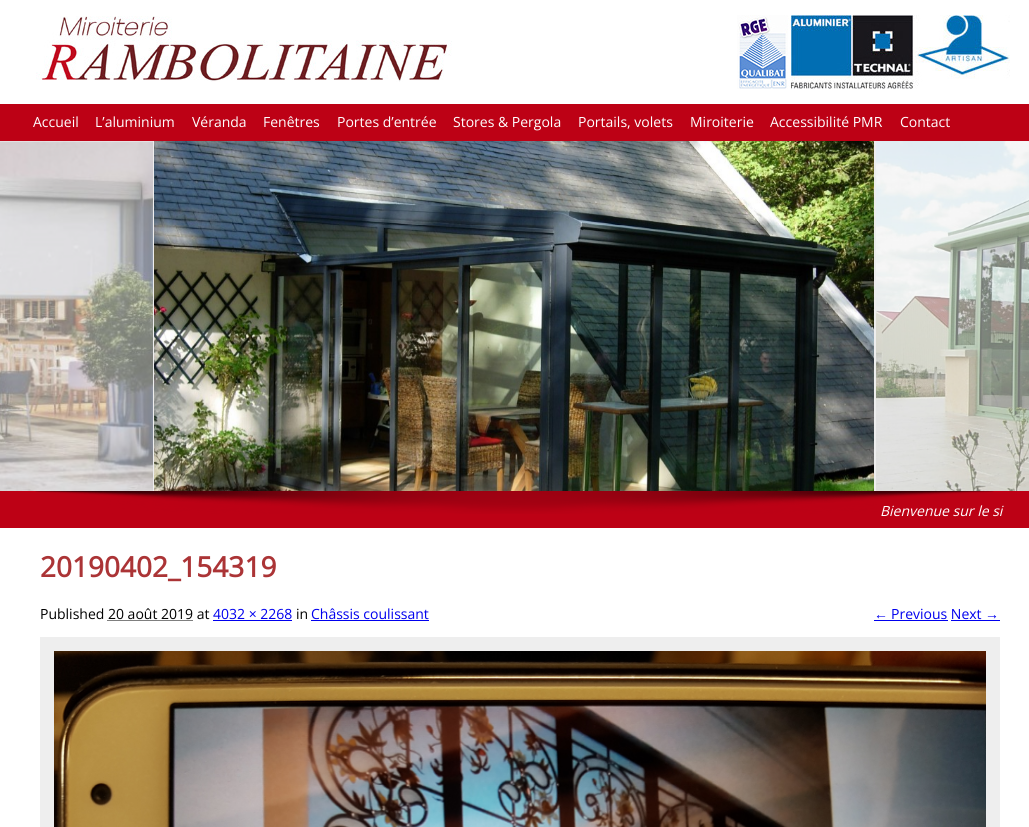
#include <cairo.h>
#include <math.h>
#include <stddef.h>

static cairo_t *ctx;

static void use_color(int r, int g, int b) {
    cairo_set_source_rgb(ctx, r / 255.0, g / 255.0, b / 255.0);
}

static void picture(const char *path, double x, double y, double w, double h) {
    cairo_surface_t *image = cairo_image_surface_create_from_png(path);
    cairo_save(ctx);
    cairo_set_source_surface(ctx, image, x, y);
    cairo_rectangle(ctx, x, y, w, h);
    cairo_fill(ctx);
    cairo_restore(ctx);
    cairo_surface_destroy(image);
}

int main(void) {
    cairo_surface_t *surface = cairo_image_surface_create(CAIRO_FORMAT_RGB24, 1029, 827);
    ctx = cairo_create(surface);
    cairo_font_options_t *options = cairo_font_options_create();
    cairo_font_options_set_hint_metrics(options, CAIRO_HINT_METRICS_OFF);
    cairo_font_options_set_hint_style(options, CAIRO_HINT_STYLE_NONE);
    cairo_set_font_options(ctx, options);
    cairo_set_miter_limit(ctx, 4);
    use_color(255, 255, 255);
    cairo_paint(ctx);
    picture("img1.png", 36, 16, 416, 66);
    picture("img2.png", 737, 15, 273, 74);
    use_color(189, 1, 21);
    cairo_rectangle(ctx, 0, 104, 1029, 424);
    cairo_fill(ctx);
    cairo_select_font_face(ctx, "Open Sans", CAIRO_FONT_SLANT_NORMAL, CAIRO_FONT_WEIGHT_NORMAL);
    cairo_set_font_size(ctx, 14);
    use_color(255, 255, 255);
    cairo_move_to(ctx, 33, 127);
    cairo_show_text(ctx, "Accueil");
    cairo_move_to(ctx, 95, 127);
    cairo_show_text(ctx, "L’aluminium");
    cairo_move_to(ctx, 192, 127);
    cairo_show_text(ctx, "Véranda");
    cairo_move_to(ctx, 263, 127);
    cairo_show_text(ctx, "Fenêtres");
    cairo_move_to(ctx, 337, 127);
    cairo_show_text(ctx, "Portes d’entrée");
    cairo_move_to(ctx, 453, 127);
    cairo_show_text(ctx, "Stores & Pergola");
    cairo_move_to(ctx, 578, 127);
    cairo_show_text(ctx, "Portails, volets");
    cairo_move_to(ctx, 690, 127);
    cairo_show_text(ctx, "Miroiterie");
    cairo_move_to(ctx, 770, 127);
    cairo_show_text(ctx, "Accessibilité PMR");
    cairo_move_to(ctx, 900, 127);
    cairo_show_text(ctx, "Contact");
    use_color(238, 238, 238);
    cairo_rectangle(ctx, 0, 141, 1029, 350);
    cairo_fill(ctx);
    picture("img3.png", 0, 141, 153, 350);
    picture("img4.png", 154, 141, 720, 350);
    picture("img5.png", 876, 141, 153, 350);
    picture("img6.png", 35, 491, 959, 23);
    cairo_select_font_face(ctx, "Open Sans", CAIRO_FONT_SLANT_ITALIC, CAIRO_FONT_WEIGHT_NORMAL);
    use_color(255, 255, 255);
    cairo_move_to(ctx, 880, 516);
    cairo_show_text(ctx, "Bienvenue sur le si");
    cairo_select_font_face(ctx, "Open Sans", CAIRO_FONT_SLANT_NORMAL, CAIRO_FONT_WEIGHT_BOLD);
    cairo_set_font_size(ctx, 28);
    use_color(171, 52, 54);
    cairo_move_to(ctx, 40, 577);
    cairo_show_text(ctx, "20190402_154319");
    cairo_select_font_face(ctx, "Open Sans", CAIRO_FONT_SLANT_NORMAL, CAIRO_FONT_WEIGHT_NORMAL);
    cairo_set_font_size(ctx, 14);
    use_color(0, 0, 0);
    cairo_move_to(ctx, 40, 619);
    cairo_show_text(ctx, "Published 20 août 2019 at");
    use_color(0, 0, 238);
    cairo_move_to(ctx, 213, 619);
    cairo_show_text(ctx, "4032 × 2268");
    cairo_rectangle(ctx, 213, 620, 79, 1);
    cairo_fill(ctx);
    use_color(0, 0, 0);
    cairo_move_to(ctx, 296, 619);
    cairo_show_text(ctx, "in");
    use_color(0, 0, 238);
    cairo_move_to(ctx, 311, 619);
    cairo_show_text(ctx, "Châssis coulissant");
    cairo_rectangle(ctx, 311, 620, 118, 1);
    cairo_fill(ctx);
    cairo_new_path(ctx);
    cairo_move_to(ctx, 107.5, 620.5);
    cairo_line_to(ctx, 192.5, 620.5);
    use_color(0, 0, 0);
    cairo_set_line_width(ctx, 1);
    cairo_set_dash(ctx, (double[]){1, 1}, 2, 0);
    cairo_stroke(ctx);
    cairo_select_font_face(ctx, "Liberation Sans", CAIRO_FONT_SLANT_NORMAL, CAIRO_FONT_WEIGHT_NORMAL);
    use_color(0, 0, 238);
    cairo_move_to(ctx, 874, 619);
    cairo_show_text(ctx, "←");
    cairo_rectangle(ctx, 874, 620, 74, 1);
    cairo_fill(ctx);
    cairo_select_font_face(ctx, "Open Sans", CAIRO_FONT_SLANT_NORMAL, CAIRO_FONT_WEIGHT_NORMAL);
    cairo_move_to(ctx, 891, 619);
    cairo_show_text(ctx, "Previous Next");
    cairo_select_font_face(ctx, "Liberation Sans", CAIRO_FONT_SLANT_NORMAL, CAIRO_FONT_WEIGHT_NORMAL);
    cairo_move_to(ctx, 985, 619);
    cairo_show_text(ctx, "→");
    cairo_rectangle(ctx, 951, 620, 49, 1);
    cairo_fill(ctx);
    use_color(238, 238, 238);
    cairo_rectangle(ctx, 40, 637, 960, 190);
    cairo_fill(ctx);
    picture("img7.png", 54, 651, 932, 176);
    cairo_surface_write_to_png(surface, "result.png");
    cairo_font_options_destroy(options);
    cairo_destroy(ctx);
    cairo_surface_destroy(surface);
    return 0;
}
